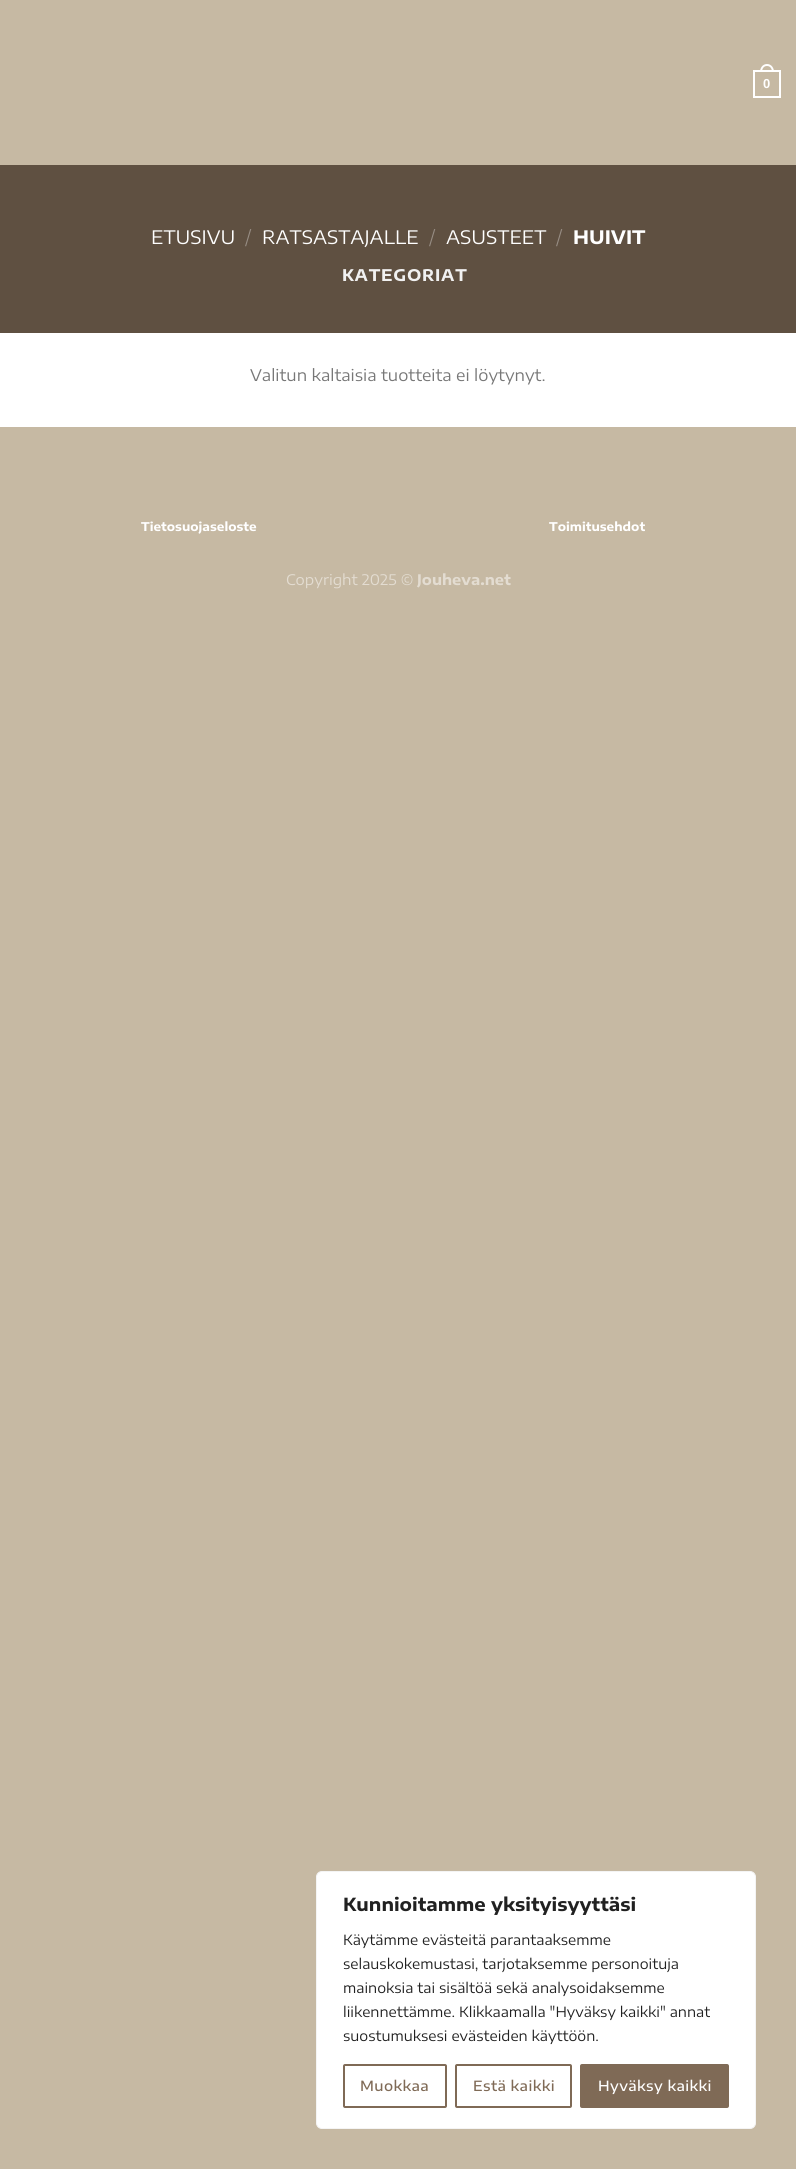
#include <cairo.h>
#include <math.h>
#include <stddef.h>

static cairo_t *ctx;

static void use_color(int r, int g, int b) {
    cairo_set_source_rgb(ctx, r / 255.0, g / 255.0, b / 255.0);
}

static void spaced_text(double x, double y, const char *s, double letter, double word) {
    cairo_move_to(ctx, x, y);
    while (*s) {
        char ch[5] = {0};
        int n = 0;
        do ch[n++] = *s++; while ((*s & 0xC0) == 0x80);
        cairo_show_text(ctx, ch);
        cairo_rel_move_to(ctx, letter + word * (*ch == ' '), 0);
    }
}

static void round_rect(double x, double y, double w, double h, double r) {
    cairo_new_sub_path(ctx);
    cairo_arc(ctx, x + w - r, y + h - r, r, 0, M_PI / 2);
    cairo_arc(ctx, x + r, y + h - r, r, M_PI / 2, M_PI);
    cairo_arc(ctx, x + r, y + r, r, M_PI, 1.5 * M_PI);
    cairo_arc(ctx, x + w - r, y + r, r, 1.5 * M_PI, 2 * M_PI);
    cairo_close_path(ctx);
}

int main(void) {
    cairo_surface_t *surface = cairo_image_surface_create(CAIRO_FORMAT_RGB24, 796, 2169);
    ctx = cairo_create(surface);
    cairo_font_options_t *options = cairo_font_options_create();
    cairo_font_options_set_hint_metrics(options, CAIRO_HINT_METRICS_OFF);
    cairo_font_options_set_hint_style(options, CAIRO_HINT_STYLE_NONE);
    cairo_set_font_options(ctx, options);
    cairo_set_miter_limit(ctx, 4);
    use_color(198, 185, 163);
    cairo_paint(ctx);
    use_color(255, 255, 255);
    cairo_rectangle(ctx, 0, 333, 796, 94);
    cairo_fill(ctx);
    cairo_rectangle(ctx, 754, 71, 26, 26);
    cairo_stroke(ctx);
    cairo_set_fill_rule(ctx, CAIRO_FILL_RULE_EVEN_ODD);
    cairo_new_path(ctx);
    cairo_move_to(ctx, 767, 64);
    cairo_curve_to(ctx, 771.5, 64, 774, 68, 774, 72);
    cairo_line_to(ctx, 760, 72);
    cairo_curve_to(ctx, 760, 68, 762.5, 64, 767, 64);
    cairo_close_path(ctx);
    cairo_move_to(ctx, 767, 66);
    cairo_curve_to(ctx, 770.5, 66, 772, 69, 772, 72);
    cairo_line_to(ctx, 762, 72);
    cairo_curve_to(ctx, 762, 69, 763.5, 66, 767, 66);
    cairo_close_path(ctx);
    cairo_fill(ctx);
    cairo_select_font_face(ctx, "Liberation Sans", CAIRO_FONT_SLANT_NORMAL, CAIRO_FONT_WEIGHT_BOLD);
    cairo_set_font_size(ctx, 13);
    cairo_move_to(ctx, 763, 88);
    cairo_show_text(ctx, "0");
    use_color(95, 80, 65);
    cairo_rectangle(ctx, 0, 165, 796, 168);
    cairo_fill(ctx);
    cairo_select_font_face(ctx, "Encode Sans Expanded", CAIRO_FONT_SLANT_NORMAL, CAIRO_FONT_WEIGHT_NORMAL);
    cairo_set_font_size(ctx, 18.5);
    use_color(255, 255, 255);
    cairo_move_to(ctx, 151, 244);
    cairo_show_text(ctx, "ETUSIVU");
    cairo_select_font_face(ctx, "Encode Sans Expanded Light", CAIRO_FONT_SLANT_NORMAL, CAIRO_FONT_WEIGHT_NORMAL);
    use_color(151, 141, 132);
    cairo_move_to(ctx, 245, 244);
    cairo_show_text(ctx, "/");
    cairo_select_font_face(ctx, "Encode Sans Expanded", CAIRO_FONT_SLANT_NORMAL, CAIRO_FONT_WEIGHT_NORMAL);
    use_color(255, 255, 255);
    cairo_move_to(ctx, 262, 244);
    cairo_show_text(ctx, "RATSASTAJALLE");
    cairo_select_font_face(ctx, "Encode Sans Expanded Light", CAIRO_FONT_SLANT_NORMAL, CAIRO_FONT_WEIGHT_NORMAL);
    use_color(151, 141, 132);
    cairo_move_to(ctx, 429, 244);
    cairo_show_text(ctx, "/");
    cairo_select_font_face(ctx, "Encode Sans Expanded", CAIRO_FONT_SLANT_NORMAL, CAIRO_FONT_WEIGHT_NORMAL);
    use_color(255, 255, 255);
    cairo_move_to(ctx, 446, 244);
    cairo_show_text(ctx, "ASUSTEET");
    cairo_select_font_face(ctx, "Encode Sans Expanded Light", CAIRO_FONT_SLANT_NORMAL, CAIRO_FONT_WEIGHT_NORMAL);
    use_color(151, 141, 132);
    cairo_move_to(ctx, 556, 244);
    cairo_show_text(ctx, "/");
    cairo_select_font_face(ctx, "Encode Sans Expanded", CAIRO_FONT_SLANT_NORMAL, CAIRO_FONT_WEIGHT_BOLD);
    use_color(255, 255, 255);
    cairo_move_to(ctx, 573, 244);
    cairo_show_text(ctx, "HUIVIT");
    cairo_set_font_size(ctx, 16);
    use_color(241, 241, 241);
    spaced_text(342, 281, "KATEGORIAT", 0.75, 0);
    cairo_select_font_face(ctx, "Encode Sans Expanded", CAIRO_FONT_SLANT_NORMAL, CAIRO_FONT_WEIGHT_NORMAL);
    use_color(119, 119, 119);
    cairo_move_to(ctx, 250, 381);
    cairo_show_text(ctx, "Valitun kaltaisia tuotteita ei löytynyt.");
    cairo_select_font_face(ctx, "Encode Sans Expanded", CAIRO_FONT_SLANT_NORMAL, CAIRO_FONT_WEIGHT_BOLD);
    cairo_set_font_size(ctx, 12);
    use_color(255, 255, 255);
    cairo_move_to(ctx, 141, 531);
    cairo_show_text(ctx, "Tietosuojaseloste");
    cairo_move_to(ctx, 549, 531);
    cairo_show_text(ctx, "Toimitusehdot");
    cairo_select_font_face(ctx, "Encode Sans Expanded", CAIRO_FONT_SLANT_NORMAL, CAIRO_FONT_WEIGHT_NORMAL);
    cairo_set_font_size(ctx, 14.5);
    use_color(227, 220, 209);
    cairo_move_to(ctx, 286, 585);
    cairo_show_text(ctx, "Copyright 2025 ©");
    cairo_select_font_face(ctx, "Encode Sans Expanded", CAIRO_FONT_SLANT_NORMAL, CAIRO_FONT_WEIGHT_BOLD);
    cairo_move_to(ctx, 417, 585);
    cairo_show_text(ctx, "Jouheva.net");
    use_color(255, 255, 255);
    round_rect(316.5, 1871.5, 439, 257, 5.5);
    cairo_fill_preserve(ctx);
    use_color(244, 244, 244);
    cairo_set_line_width(ctx, 1);
    cairo_stroke(ctx);
    cairo_set_font_size(ctx, 18);
    use_color(33, 33, 33);
    cairo_move_to(ctx, 343, 1911);
    cairo_show_text(ctx, "Kunnioitamme yksityisyyttäsi");
    cairo_select_font_face(ctx, "Encode Sans Expanded", CAIRO_FONT_SLANT_NORMAL, CAIRO_FONT_WEIGHT_NORMAL);
    cairo_set_font_size(ctx, 14);
    cairo_move_to(ctx, 343, 1945);
    cairo_show_text(ctx, "Käytämme evästeitä parantaaksemme");
    cairo_move_to(ctx, 343, 1969);
    cairo_show_text(ctx, "selauskokemustasi, tarjotaksemme personoituja");
    cairo_move_to(ctx, 343, 1993);
    cairo_show_text(ctx, "mainoksia tai sisältöä sekä analysoidaksemme");
    cairo_move_to(ctx, 343, 2017);
    cairo_show_text(ctx, "liikennettämme. Klikkaamalla \"Hyväksy kaikki\" annat");
    cairo_move_to(ctx, 343, 2041);
    cairo_show_text(ctx, "suostumuksesi evästeiden käyttöön.");
    round_rect(344, 2065, 102, 42, 1);
    use_color(127, 106, 86);
    cairo_set_line_width(ctx, 2);
    cairo_stroke(ctx);
    cairo_select_font_face(ctx, "Encode Sans Expanded Medium", CAIRO_FONT_SLANT_NORMAL, CAIRO_FONT_WEIGHT_NORMAL);
    spaced_text(360, 2091, "Muokkaa", 0.4, 0);
    round_rect(456, 2065, 115, 42, 1);
    cairo_stroke(ctx);
    spaced_text(473, 2091, "Estä kaikki", 0.4, 0);
    round_rect(581, 2065, 147, 42, 1);
    cairo_fill_preserve(ctx);
    cairo_stroke(ctx);
    use_color(255, 255, 255);
    spaced_text(598, 2091, "Hyväksy kaikki", 0.4, 0);
    cairo_surface_write_to_png(surface, "result.png");
    cairo_font_options_destroy(options);
    cairo_destroy(ctx);
    cairo_surface_destroy(surface);
    return 0;
}
